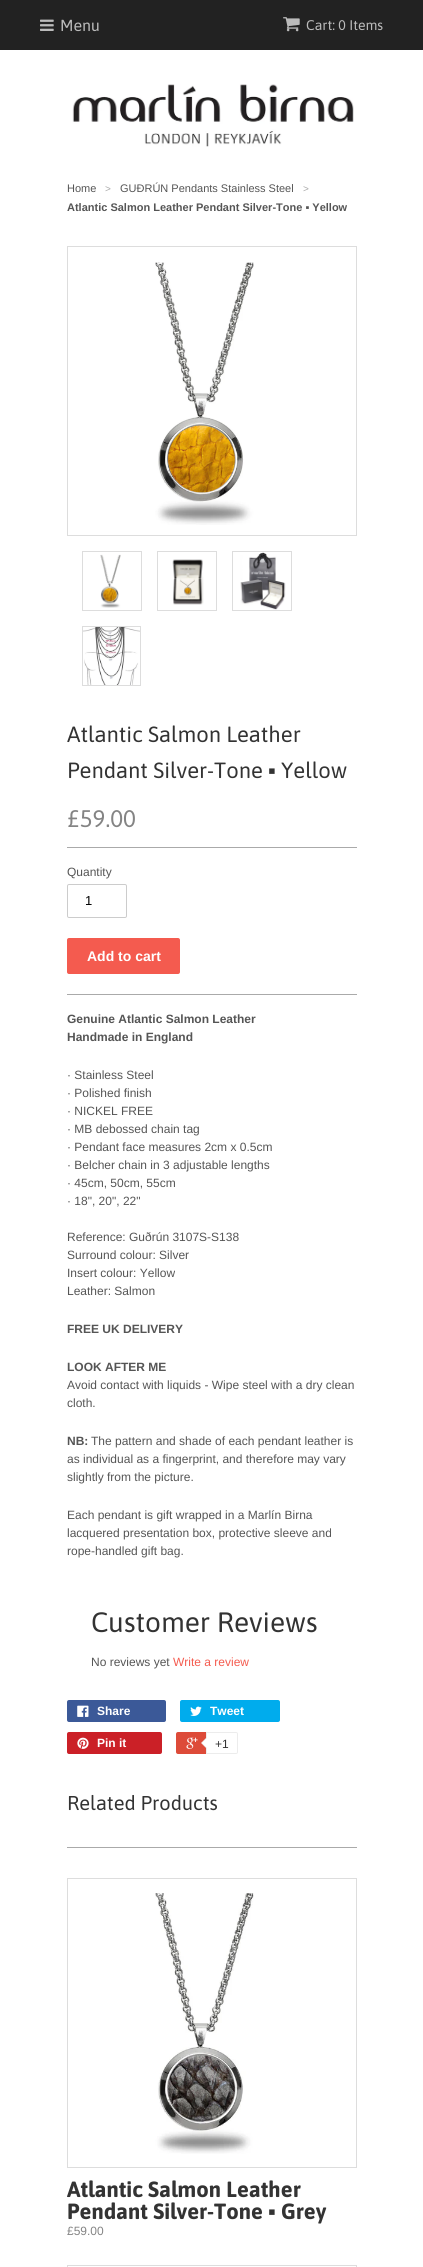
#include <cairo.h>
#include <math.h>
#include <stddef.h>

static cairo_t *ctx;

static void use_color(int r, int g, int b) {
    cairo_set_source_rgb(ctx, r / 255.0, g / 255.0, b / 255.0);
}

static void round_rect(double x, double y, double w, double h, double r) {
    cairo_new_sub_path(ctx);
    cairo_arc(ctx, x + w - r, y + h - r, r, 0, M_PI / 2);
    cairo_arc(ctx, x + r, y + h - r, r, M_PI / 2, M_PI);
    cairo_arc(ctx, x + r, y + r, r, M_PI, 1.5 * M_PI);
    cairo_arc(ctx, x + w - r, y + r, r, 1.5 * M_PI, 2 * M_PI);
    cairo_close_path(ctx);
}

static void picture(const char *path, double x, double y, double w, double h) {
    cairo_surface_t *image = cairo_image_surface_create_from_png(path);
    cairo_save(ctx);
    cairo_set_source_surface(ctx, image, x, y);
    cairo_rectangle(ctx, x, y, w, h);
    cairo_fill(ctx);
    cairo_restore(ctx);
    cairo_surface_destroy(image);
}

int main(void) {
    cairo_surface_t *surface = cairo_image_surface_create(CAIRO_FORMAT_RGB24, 423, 2267);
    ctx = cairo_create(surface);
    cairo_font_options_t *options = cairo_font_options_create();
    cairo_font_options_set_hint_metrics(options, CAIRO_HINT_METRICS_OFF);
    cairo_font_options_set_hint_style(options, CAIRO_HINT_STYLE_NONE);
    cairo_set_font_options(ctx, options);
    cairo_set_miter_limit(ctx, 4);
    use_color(255, 255, 255);
    cairo_paint(ctx);
    use_color(34, 34, 34);
    cairo_rectangle(ctx, 0, 0, 423, 50);
    cairo_fill(ctx);
    picture("img1.png", 40, 19, 14, 12);
    cairo_select_font_face(ctx, "Asap", CAIRO_FONT_SLANT_NORMAL, CAIRO_FONT_WEIGHT_NORMAL);
    cairo_set_font_size(ctx, 16);
    use_color(187, 187, 187);
    cairo_move_to(ctx, 60, 31);
    cairo_show_text(ctx, "Menu");
    picture("img2.png", 283, 17, 17, 15);
    cairo_set_font_size(ctx, 14);
    cairo_move_to(ctx, 306, 30);
    cairo_show_text(ctx, "Cart: 0 Items");
    picture("img3.png", 72, 84, 282, 63);
    cairo_select_font_face(ctx, "Liberation Sans", CAIRO_FONT_SLANT_NORMAL, CAIRO_FONT_WEIGHT_NORMAL);
    cairo_set_font_size(ctx, 11);
    use_color(85, 85, 85);
    cairo_move_to(ctx, 67, 192);
    cairo_show_text(ctx, "Home");
    cairo_set_font_size(ctx, 10);
    use_color(170, 170, 170);
    cairo_move_to(ctx, 105, 192);
    cairo_show_text(ctx, ">");
    cairo_set_font_size(ctx, 11);
    use_color(85, 85, 85);
    cairo_move_to(ctx, 120, 192);
    cairo_show_text(ctx, "GUÐRÚN Pendants Stainless Steel");
    cairo_set_font_size(ctx, 10);
    use_color(170, 170, 170);
    cairo_move_to(ctx, 303, 192);
    cairo_show_text(ctx, ">");
    cairo_select_font_face(ctx, "Liberation Sans", CAIRO_FONT_SLANT_NORMAL, CAIRO_FONT_WEIGHT_BOLD);
    cairo_set_font_size(ctx, 11);
    use_color(85, 85, 85);
    cairo_move_to(ctx, 67, 211);
    cairo_show_text(ctx, "Atlantic Salmon Leather Pendant Silver-Tone ▪ Yellow");
    cairo_rectangle(ctx, 67.5, 246.5, 289, 289);
    use_color(221, 221, 221);
    cairo_set_line_width(ctx, 1);
    cairo_stroke(ctx);
    picture("img4.png", 155, 262, 99, 263);
    cairo_rectangle(ctx, 82.5, 551.5, 59, 59);
    cairo_stroke(ctx);
    picture("img5.png", 100, 554, 21, 54);
    cairo_rectangle(ctx, 157.5, 551.5, 59, 59);
    cairo_stroke(ctx);
    picture("img6.png", 172, 559, 32, 46);
    cairo_rectangle(ctx, 232.5, 551.5, 59, 59);
    cairo_stroke(ctx);
    picture("img7.png", 240, 552, 46, 58);
    cairo_rectangle(ctx, 82.5, 626.5, 58, 59);
    cairo_stroke(ctx);
    picture("img8.png", 83, 627, 57, 58);
    cairo_select_font_face(ctx, "Asap", CAIRO_FONT_SLANT_NORMAL, CAIRO_FONT_WEIGHT_NORMAL);
    cairo_set_font_size(ctx, 22);
    use_color(51, 51, 51);
    cairo_move_to(ctx, 67, 742);
    cairo_show_text(ctx, "Atlantic Salmon Leather");
    cairo_move_to(ctx, 67, 778);
    cairo_show_text(ctx, "Pendant Silver-Tone");
    cairo_select_font_face(ctx, "Liberation Sans", CAIRO_FONT_SLANT_NORMAL, CAIRO_FONT_WEIGHT_NORMAL);
    cairo_move_to(ctx, 268, 778);
    cairo_show_text(ctx, "▪");
    cairo_select_font_face(ctx, "Asap", CAIRO_FONT_SLANT_NORMAL, CAIRO_FONT_WEIGHT_NORMAL);
    cairo_move_to(ctx, 281, 778);
    cairo_show_text(ctx, "Yellow");
    cairo_set_font_size(ctx, 24);
    use_color(132, 132, 132);
    cairo_move_to(ctx, 67, 827);
    cairo_show_text(ctx, "£59.00");
    use_color(170, 170, 170);
    cairo_rectangle(ctx, 67, 847, 290, 1);
    cairo_fill(ctx);
    cairo_rectangle(ctx, 67, 994, 290, 1);
    cairo_fill(ctx);
    cairo_select_font_face(ctx, "Liberation Sans", CAIRO_FONT_SLANT_NORMAL, CAIRO_FONT_WEIGHT_NORMAL);
    cairo_set_font_size(ctx, 12);
    use_color(85, 85, 85);
    cairo_move_to(ctx, 67, 876);
    cairo_show_text(ctx, "Quantity");
    round_rect(67.5, 884.5, 59, 33, 1.5);
    use_color(204, 204, 204);
    cairo_stroke(ctx);
    cairo_set_font_size(ctx, 13);
    use_color(0, 0, 0);
    cairo_move_to(ctx, 85, 905);
    cairo_show_text(ctx, "1");
    use_color(244, 91, 79);
    round_rect(67, 938, 113, 36, 2);
    cairo_fill(ctx);
    cairo_select_font_face(ctx, "Liberation Sans", CAIRO_FONT_SLANT_NORMAL, CAIRO_FONT_WEIGHT_BOLD);
    cairo_set_font_size(ctx, 14);
    use_color(255, 255, 255);
    cairo_move_to(ctx, 87, 961);
    cairo_show_text(ctx, "Add to cart");
    cairo_set_font_size(ctx, 12);
    use_color(85, 85, 85);
    cairo_move_to(ctx, 67, 1023);
    cairo_show_text(ctx, "Genuine Atlantic Salmon Leather");
    cairo_move_to(ctx, 67, 1041);
    cairo_show_text(ctx, "Handmade in England");
    cairo_select_font_face(ctx, "Liberation Sans", CAIRO_FONT_SLANT_NORMAL, CAIRO_FONT_WEIGHT_NORMAL);
    cairo_move_to(ctx, 67, 1079);
    cairo_show_text(ctx, "· Stainless Steel");
    cairo_move_to(ctx, 67, 1097);
    cairo_show_text(ctx, "· Polished finish");
    cairo_move_to(ctx, 67, 1115);
    cairo_show_text(ctx, "· NICKEL FREE");
    cairo_move_to(ctx, 67, 1133);
    cairo_show_text(ctx, "· MB debossed chain tag");
    cairo_move_to(ctx, 67, 1151);
    cairo_show_text(ctx, "· Pendant face measures 2cm x 0.5cm");
    cairo_move_to(ctx, 67, 1169);
    cairo_show_text(ctx, "· Belcher chain in 3 adjustable lengths");
    cairo_move_to(ctx, 67, 1187);
    cairo_show_text(ctx, "· 45cm, 50cm, 55cm");
    cairo_move_to(ctx, 67, 1205);
    cairo_show_text(ctx, "· 18\", 20\", 22\"");
    cairo_move_to(ctx, 67, 1241);
    cairo_show_text(ctx, "Reference: Guðrún 3107S-S138");
    cairo_move_to(ctx, 67, 1259);
    cairo_show_text(ctx, "Surround colour: Silver");
    cairo_move_to(ctx, 67, 1277);
    cairo_show_text(ctx, "Insert colour: Yellow");
    cairo_move_to(ctx, 67, 1295);
    cairo_show_text(ctx, "Leather: Salmon");
    cairo_select_font_face(ctx, "Liberation Sans", CAIRO_FONT_SLANT_NORMAL, CAIRO_FONT_WEIGHT_BOLD);
    cairo_move_to(ctx, 67, 1333);
    cairo_show_text(ctx, "FREE UK DELIVERY");
    cairo_move_to(ctx, 67, 1371);
    cairo_show_text(ctx, "LOOK AFTER ME");
    cairo_select_font_face(ctx, "Liberation Sans", CAIRO_FONT_SLANT_NORMAL, CAIRO_FONT_WEIGHT_NORMAL);
    cairo_move_to(ctx, 67, 1389);
    cairo_show_text(ctx, "Avoid contact with liquids - Wipe steel with a dry clean");
    cairo_move_to(ctx, 67, 1407);
    cairo_show_text(ctx, "cloth.");
    cairo_select_font_face(ctx, "Liberation Sans", CAIRO_FONT_SLANT_NORMAL, CAIRO_FONT_WEIGHT_BOLD);
    cairo_move_to(ctx, 67, 1445);
    cairo_show_text(ctx, "NB:");
    cairo_select_font_face(ctx, "Liberation Sans", CAIRO_FONT_SLANT_NORMAL, CAIRO_FONT_WEIGHT_NORMAL);
    cairo_move_to(ctx, 91, 1445);
    cairo_show_text(ctx, "The pattern and shade of each pendant leather is");
    cairo_move_to(ctx, 67, 1463);
    cairo_show_text(ctx, "as individual as a fingerprint, and therefore may vary");
    cairo_move_to(ctx, 67, 1481);
    cairo_show_text(ctx, "slightly from the picture.");
    cairo_move_to(ctx, 67, 1519);
    cairo_show_text(ctx, "Each pendant is gift wrapped in a Marlín Birna");
    cairo_move_to(ctx, 67, 1537);
    cairo_show_text(ctx, "lacquered presentation box, protective sleeve and");
    cairo_move_to(ctx, 67, 1555);
    cairo_show_text(ctx, "rope-handled gift bag.");
    cairo_select_font_face(ctx, "Asap", CAIRO_FONT_SLANT_NORMAL, CAIRO_FONT_WEIGHT_NORMAL);
    cairo_set_font_size(ctx, 28);
    use_color(51, 51, 51);
    cairo_move_to(ctx, 91, 1632);
    cairo_show_text(ctx, "Customer Reviews");
    cairo_select_font_face(ctx, "Liberation Sans", CAIRO_FONT_SLANT_NORMAL, CAIRO_FONT_WEIGHT_NORMAL);
    cairo_set_font_size(ctx, 12);
    use_color(85, 85, 85);
    cairo_move_to(ctx, 91, 1666);
    cairo_show_text(ctx, "No reviews yet");
    use_color(244, 91, 79);
    cairo_move_to(ctx, 173, 1666);
    cairo_show_text(ctx, "Write a review");
    use_color(59, 89, 152);
    round_rect(67, 1700, 99, 22, 2);
    cairo_fill(ctx);
    picture("img9.png", 77, 1705, 12, 12);
    cairo_select_font_face(ctx, "Liberation Sans", CAIRO_FONT_SLANT_NORMAL, CAIRO_FONT_WEIGHT_BOLD);
    use_color(255, 255, 255);
    cairo_move_to(ctx, 97, 1715);
    cairo_show_text(ctx, "Share");
    use_color(0, 172, 237);
    round_rect(180, 1700, 100, 22, 2);
    cairo_fill(ctx);
    picture("img10.png", 190, 1706, 12, 10);
    use_color(255, 255, 255);
    cairo_move_to(ctx, 210, 1715);
    cairo_show_text(ctx, "Tweet");
    use_color(203, 32, 39);
    round_rect(67, 1732, 95, 22, 2);
    cairo_fill(ctx);
    picture("img11.png", 77, 1737, 12, 12);
    use_color(255, 255, 255);
    cairo_move_to(ctx, 97, 1747);
    cairo_show_text(ctx, "Pin it");
    use_color(221, 75, 57);
    round_rect(176, 1732, 60, 22, 2);
    cairo_fill(ctx);
    picture("img12.png", 186, 1737, 12, 12);
    use_color(255, 255, 255);
    cairo_new_path(ctx);
    cairo_move_to(ctx, 206.5, 1732.5);
    cairo_line_to(ctx, 236, 1732.5);
    cairo_curve_to(ctx, 237, 1732.5, 237.5, 1733, 237.5, 1734);
    cairo_line_to(ctx, 237.5, 1752);
    cairo_curve_to(ctx, 237.5, 1753, 237, 1753.5, 236, 1753.5);
    cairo_line_to(ctx, 206.5, 1753.5);
    cairo_close_path(ctx);
    cairo_fill_preserve(ctx);
    use_color(236, 236, 236);
    cairo_stroke(ctx);
    cairo_new_path(ctx);
    cairo_move_to(ctx, 207, 1737);
    cairo_line_to(ctx, 207, 1749);
    cairo_line_to(ctx, 201, 1743);
    cairo_close_path(ctx);
    cairo_fill(ctx);
    use_color(255, 255, 255);
    cairo_new_path(ctx);
    cairo_move_to(ctx, 208, 1737);
    cairo_line_to(ctx, 208, 1749);
    cairo_line_to(ctx, 202, 1743);
    cairo_close_path(ctx);
    cairo_fill(ctx);
    cairo_select_font_face(ctx, "Liberation Sans", CAIRO_FONT_SLANT_NORMAL, CAIRO_FONT_WEIGHT_NORMAL);
    use_color(51, 51, 51);
    cairo_move_to(ctx, 215, 1748);
    cairo_show_text(ctx, "+1");
    use_color(170, 170, 170);
    cairo_rectangle(ctx, 67, 1847, 290, 1);
    cairo_fill(ctx);
    cairo_select_font_face(ctx, "Asap", CAIRO_FONT_SLANT_NORMAL, CAIRO_FONT_WEIGHT_NORMAL);
    cairo_set_font_size(ctx, 20);
    use_color(51, 51, 51);
    cairo_move_to(ctx, 67, 1810);
    cairo_show_text(ctx, "Related Products");
    cairo_rectangle(ctx, 67.5, 1878.5, 289, 289);
    use_color(221, 221, 221);
    cairo_stroke(ctx);
    picture("img13.png", 155, 1893, 99, 261);
    cairo_select_font_face(ctx, "Asap", CAIRO_FONT_SLANT_NORMAL, CAIRO_FONT_WEIGHT_BOLD);
    cairo_set_font_size(ctx, 22);
    use_color(51, 51, 51);
    cairo_move_to(ctx, 67, 2197);
    cairo_show_text(ctx, "Atlantic Salmon Leather");
    cairo_move_to(ctx, 67, 2219);
    cairo_show_text(ctx, "Pendant Silver-Tone");
    cairo_select_font_face(ctx, "Liberation Sans", CAIRO_FONT_SLANT_NORMAL, CAIRO_FONT_WEIGHT_BOLD);
    cairo_move_to(ctx, 268, 2219);
    cairo_show_text(ctx, "▪");
    cairo_select_font_face(ctx, "Asap", CAIRO_FONT_SLANT_NORMAL, CAIRO_FONT_WEIGHT_BOLD);
    cairo_move_to(ctx, 281, 2219);
    cairo_show_text(ctx, "Grey");
    cairo_select_font_face(ctx, "Liberation Sans", CAIRO_FONT_SLANT_NORMAL, CAIRO_FONT_WEIGHT_NORMAL);
    cairo_set_font_size(ctx, 12);
    use_color(132, 132, 132);
    cairo_move_to(ctx, 67, 2235);
    cairo_show_text(ctx, "£59.00");
    cairo_rectangle(ctx, 67.5, 2265.5, 289, 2);
    use_color(221, 221, 221);
    cairo_stroke(ctx);
    cairo_surface_write_to_png(surface, "result.png");
    cairo_font_options_destroy(options);
    cairo_destroy(ctx);
    cairo_surface_destroy(surface);
    return 0;
}
